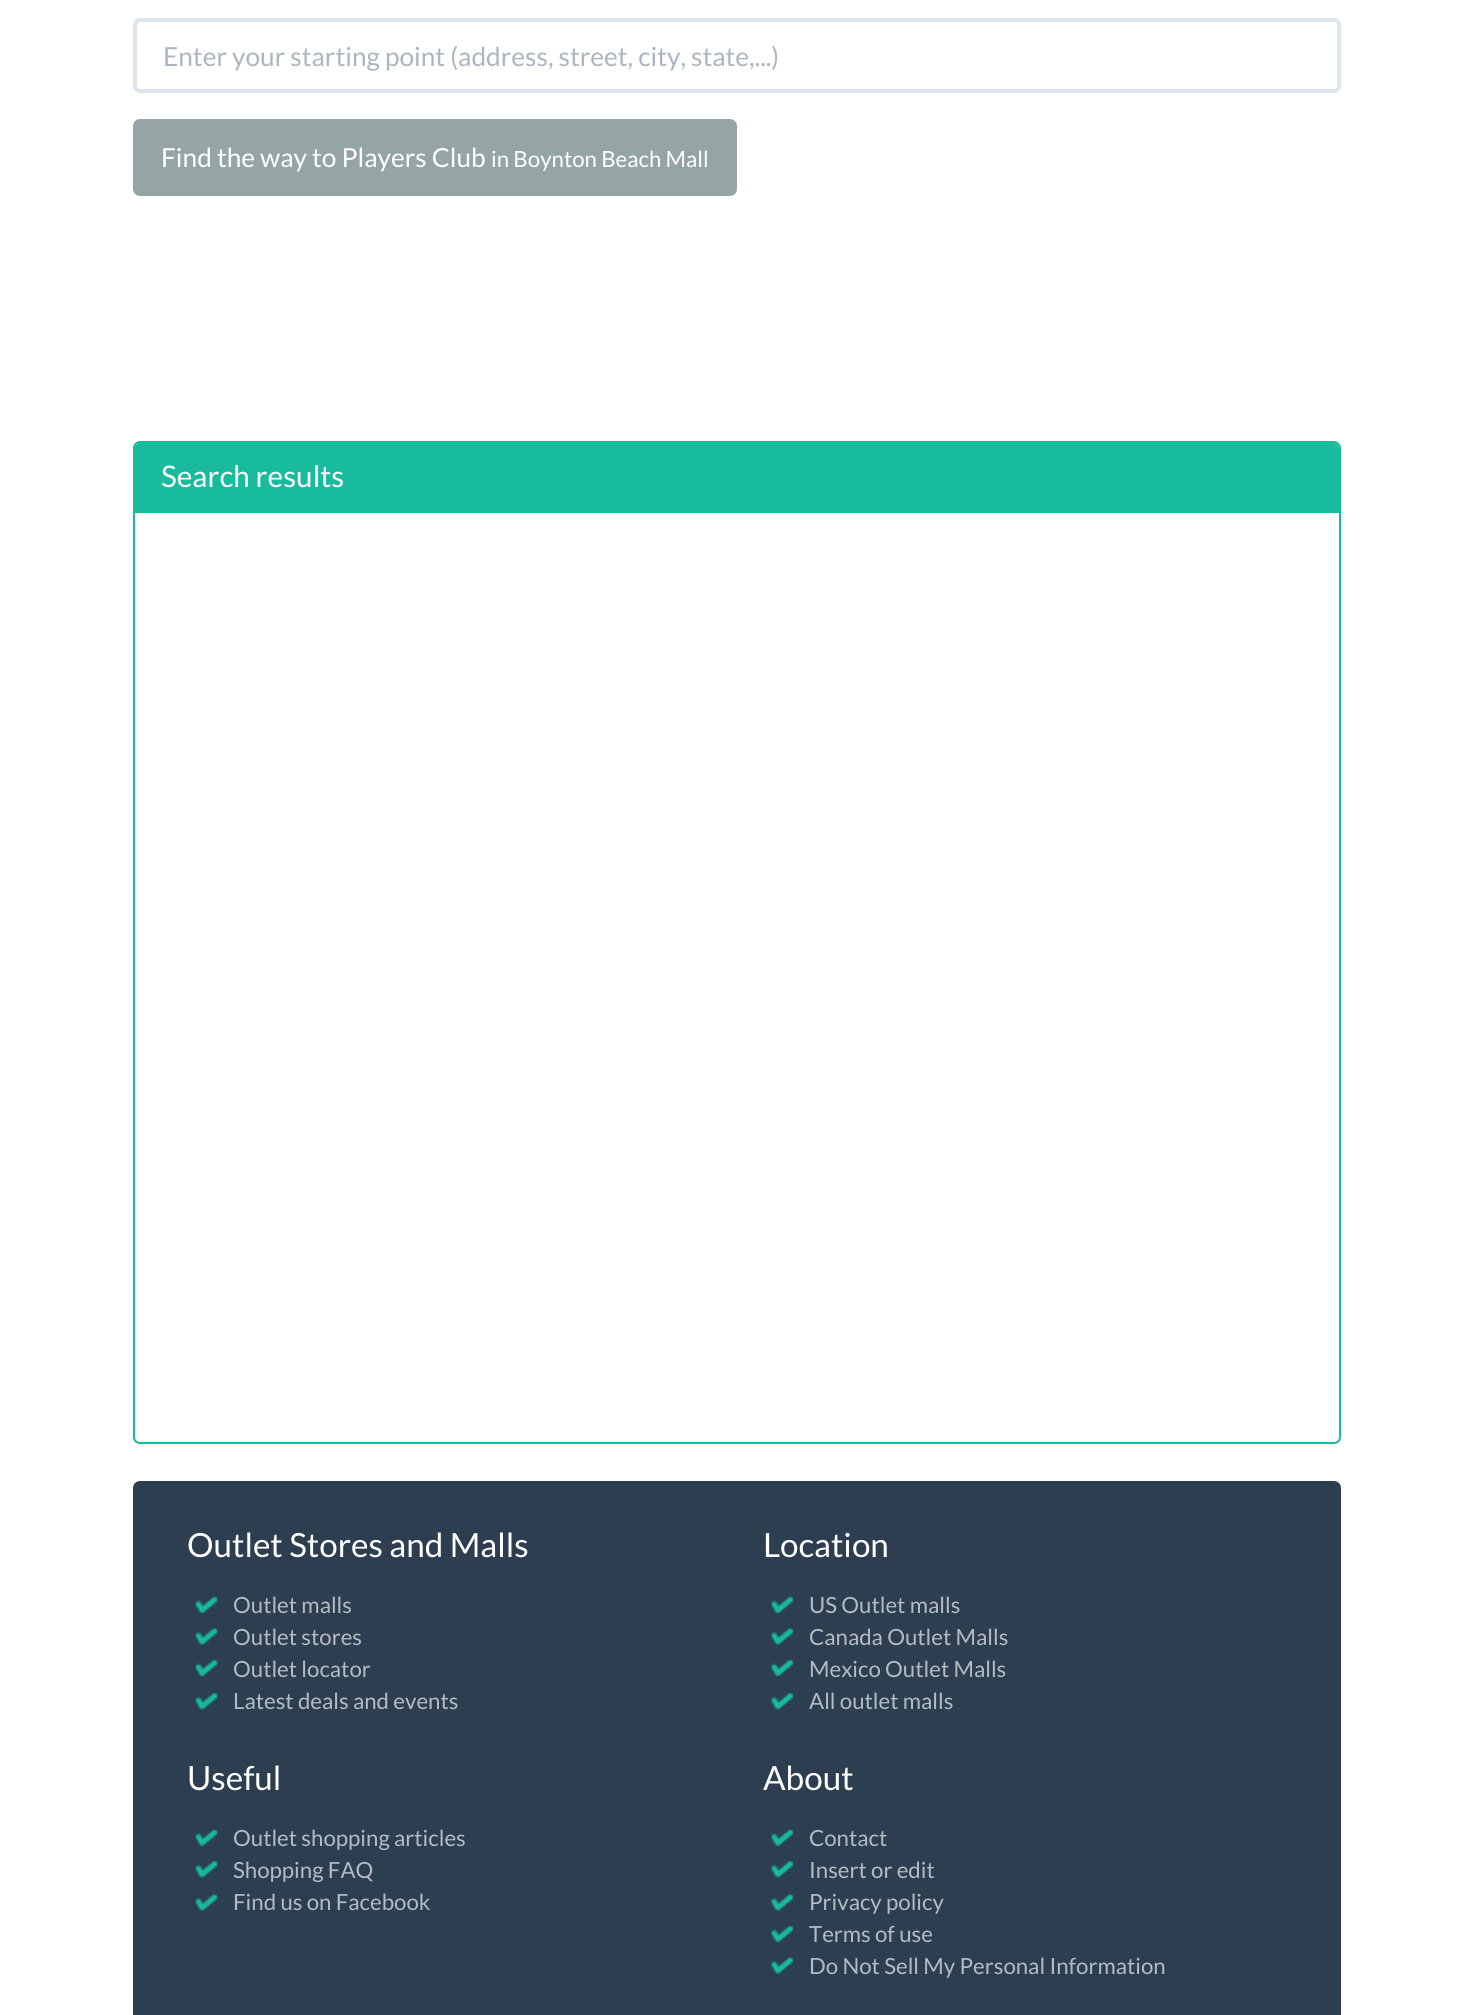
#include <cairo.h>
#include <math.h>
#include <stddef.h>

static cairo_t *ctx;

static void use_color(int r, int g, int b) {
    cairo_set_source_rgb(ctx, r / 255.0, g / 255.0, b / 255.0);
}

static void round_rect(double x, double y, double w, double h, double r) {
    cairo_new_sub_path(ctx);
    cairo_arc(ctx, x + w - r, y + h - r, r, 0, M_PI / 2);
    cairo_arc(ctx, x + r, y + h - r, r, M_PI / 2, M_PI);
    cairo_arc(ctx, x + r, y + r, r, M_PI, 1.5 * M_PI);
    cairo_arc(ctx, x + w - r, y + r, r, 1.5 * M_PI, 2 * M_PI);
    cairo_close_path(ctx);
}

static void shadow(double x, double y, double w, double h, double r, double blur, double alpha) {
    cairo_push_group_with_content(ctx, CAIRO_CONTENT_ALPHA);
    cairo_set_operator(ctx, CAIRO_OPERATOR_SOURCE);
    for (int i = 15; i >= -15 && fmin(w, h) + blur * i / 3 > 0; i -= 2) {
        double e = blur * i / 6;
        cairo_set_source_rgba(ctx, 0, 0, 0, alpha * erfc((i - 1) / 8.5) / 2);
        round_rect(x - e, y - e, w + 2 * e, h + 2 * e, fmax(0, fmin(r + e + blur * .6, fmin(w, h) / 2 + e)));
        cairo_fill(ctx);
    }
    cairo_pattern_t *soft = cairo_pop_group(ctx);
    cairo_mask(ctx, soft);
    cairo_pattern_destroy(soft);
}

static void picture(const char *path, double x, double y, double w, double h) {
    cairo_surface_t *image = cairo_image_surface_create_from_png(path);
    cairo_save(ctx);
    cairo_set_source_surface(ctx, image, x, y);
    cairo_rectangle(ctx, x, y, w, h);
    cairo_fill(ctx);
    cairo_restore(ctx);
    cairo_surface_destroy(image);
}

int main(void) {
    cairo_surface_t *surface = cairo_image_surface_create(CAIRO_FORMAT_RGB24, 1472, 2015);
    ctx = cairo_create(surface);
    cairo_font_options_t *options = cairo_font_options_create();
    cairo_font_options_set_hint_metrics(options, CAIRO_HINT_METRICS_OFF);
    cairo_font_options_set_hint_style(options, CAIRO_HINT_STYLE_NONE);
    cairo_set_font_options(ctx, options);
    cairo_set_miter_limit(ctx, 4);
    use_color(255, 255, 255);
    cairo_paint(ctx);
    round_rect(135, 20, 1204, 71, 5);
    use_color(220, 228, 236);
    cairo_set_line_width(ctx, 4);
    cairo_stroke(ctx);
    cairo_select_font_face(ctx, "Lato", CAIRO_FONT_SLANT_NORMAL, CAIRO_FONT_WEIGHT_NORMAL);
    cairo_set_font_size(ctx, 26.25);
    use_color(172, 182, 192);
    cairo_move_to(ctx, 163, 66);
    cairo_show_text(ctx, "Enter your starting point (address, street, city, state,...)");
    use_color(149, 165, 166);
    round_rect(134, 120, 602, 75, 6);
    cairo_fill_preserve(ctx);
    cairo_set_line_width(ctx, 2);
    cairo_stroke(ctx);
    use_color(255, 255, 255);
    cairo_move_to(ctx, 161, 167);
    cairo_show_text(ctx, "Find the way to Players Club");
    cairo_set_font_size(ctx, 22.25);
    cairo_move_to(ctx, 491, 167);
    cairo_show_text(ctx, "in Boynton Beach Mall");
    use_color(0, 0, 0);
    shadow(133, 443, 1208, 1003, 7, 1, 0.05);
    use_color(255, 255, 255);
    round_rect(134, 442, 1206, 1001, 6);
    cairo_fill_preserve(ctx);
    use_color(24, 188, 156);
    cairo_stroke(ctx);
    cairo_new_path(ctx);
    cairo_move_to(ctx, 140, 443);
    cairo_line_to(ctx, 1334, 443);
    cairo_curve_to(ctx, 1337, 443, 1339, 445, 1339, 448);
    cairo_line_to(ctx, 1339, 513);
    cairo_line_to(ctx, 135, 513);
    cairo_line_to(ctx, 135, 448);
    cairo_curve_to(ctx, 135, 445, 137, 443, 140, 443);
    cairo_close_path(ctx);
    cairo_fill(ctx);
    cairo_set_font_size(ctx, 29.75);
    use_color(255, 255, 255);
    cairo_move_to(ctx, 161, 487);
    cairo_show_text(ctx, "Search results");
    use_color(44, 62, 80);
    round_rect(133, 1481, 1208, 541, 7);
    cairo_fill(ctx);
    cairo_set_font_size(ctx, 33.25);
    use_color(255, 255, 255);
    cairo_move_to(ctx, 187, 1557);
    cairo_show_text(ctx, "Outlet Stores and Malls");
    picture("img1.png", 194, 1596, 25, 17);
    cairo_set_font_size(ctx, 22.25);
    use_color(180, 188, 194);
    cairo_move_to(ctx, 233, 1613);
    cairo_show_text(ctx, "Outlet malls");
    picture("img2.png", 195, 1628, 24, 17);
    cairo_move_to(ctx, 233, 1645);
    cairo_show_text(ctx, "Outlet stores");
    picture("img1.png", 194, 1659, 25, 17);
    cairo_move_to(ctx, 233, 1677);
    cairo_show_text(ctx, "Outlet locator");
    picture("img3.png", 195, 1693, 24, 17);
    cairo_move_to(ctx, 233, 1709);
    cairo_show_text(ctx, "Latest deals and events");
    cairo_set_font_size(ctx, 33.25);
    use_color(255, 255, 255);
    cairo_move_to(ctx, 763, 1557);
    cairo_show_text(ctx, "Location");
    picture("img4.png", 770, 1596, 24, 17);
    cairo_set_font_size(ctx, 22.25);
    use_color(180, 188, 194);
    cairo_move_to(ctx, 809, 1613);
    cairo_show_text(ctx, "US Outlet malls");
    picture("img5.png", 770, 1628, 25, 17);
    cairo_move_to(ctx, 809, 1645);
    cairo_show_text(ctx, "Canada Outlet Malls");
    picture("img4.png", 770, 1659, 24, 17);
    cairo_move_to(ctx, 809, 1677);
    cairo_show_text(ctx, "Mexico Outlet Malls");
    picture("img6.png", 770, 1693, 24, 17);
    cairo_move_to(ctx, 809, 1709);
    cairo_show_text(ctx, "All outlet malls");
    cairo_set_font_size(ctx, 33.25);
    use_color(255, 255, 255);
    cairo_move_to(ctx, 187, 1790);
    cairo_show_text(ctx, "Useful");
    picture("img7.png", 195, 1829, 24, 17);
    cairo_set_font_size(ctx, 22.25);
    use_color(180, 188, 194);
    cairo_move_to(ctx, 233, 1846);
    cairo_show_text(ctx, "Outlet shopping articles");
    picture("img3.png", 195, 1861, 24, 17);
    cairo_move_to(ctx, 233, 1878);
    cairo_show_text(ctx, "Shopping FAQ");
    picture("img2.png", 195, 1894, 24, 17);
    cairo_move_to(ctx, 233, 1910);
    cairo_show_text(ctx, "Find us on Facebook");
    cairo_set_font_size(ctx, 33.25);
    use_color(255, 255, 255);
    cairo_move_to(ctx, 763, 1790);
    cairo_show_text(ctx, "About");
    picture("img8.png", 770, 1829, 24, 17);
    cairo_set_font_size(ctx, 22.25);
    use_color(180, 188, 194);
    cairo_move_to(ctx, 809, 1846);
    cairo_show_text(ctx, "Contact");
    picture("img6.png", 770, 1861, 24, 17);
    cairo_move_to(ctx, 809, 1878);
    cairo_show_text(ctx, "Insert or edit");
    picture("img5.png", 770, 1894, 25, 17);
    cairo_move_to(ctx, 809, 1910);
    cairo_show_text(ctx, "Privacy policy");
    picture("img4.png", 770, 1925, 24, 17);
    cairo_move_to(ctx, 809, 1942);
    cairo_show_text(ctx, "Terms of use");
    picture("img5.png", 770, 1957, 25, 17);
    cairo_move_to(ctx, 809, 1974);
    cairo_show_text(ctx, "Do Not Sell My Personal Information");
    cairo_surface_write_to_png(surface, "result.png");
    cairo_font_options_destroy(options);
    cairo_destroy(ctx);
    cairo_surface_destroy(surface);
    return 0;
}
